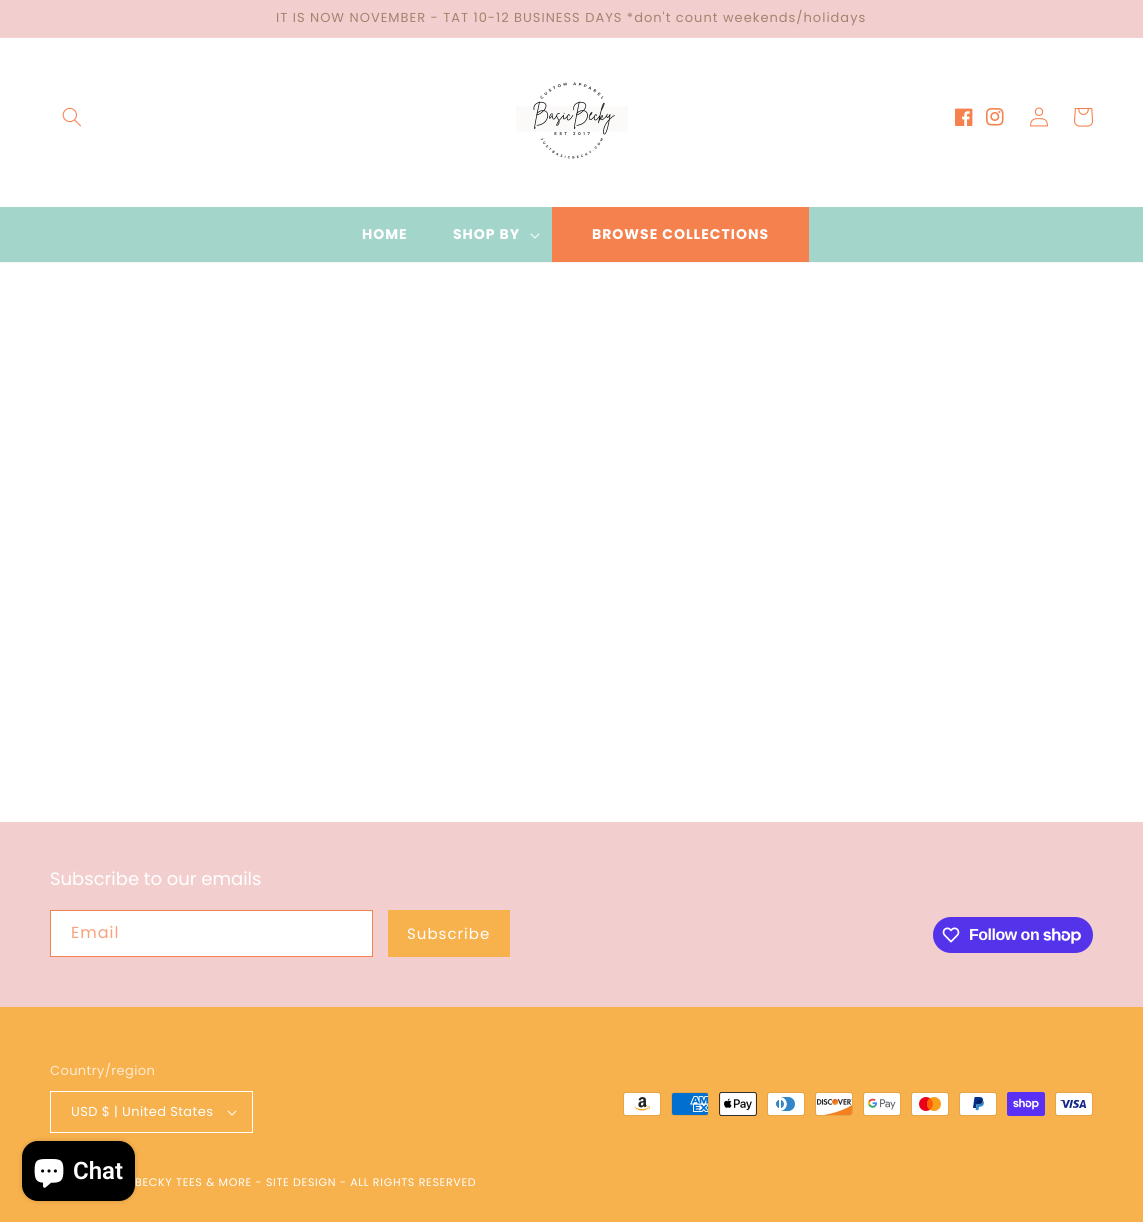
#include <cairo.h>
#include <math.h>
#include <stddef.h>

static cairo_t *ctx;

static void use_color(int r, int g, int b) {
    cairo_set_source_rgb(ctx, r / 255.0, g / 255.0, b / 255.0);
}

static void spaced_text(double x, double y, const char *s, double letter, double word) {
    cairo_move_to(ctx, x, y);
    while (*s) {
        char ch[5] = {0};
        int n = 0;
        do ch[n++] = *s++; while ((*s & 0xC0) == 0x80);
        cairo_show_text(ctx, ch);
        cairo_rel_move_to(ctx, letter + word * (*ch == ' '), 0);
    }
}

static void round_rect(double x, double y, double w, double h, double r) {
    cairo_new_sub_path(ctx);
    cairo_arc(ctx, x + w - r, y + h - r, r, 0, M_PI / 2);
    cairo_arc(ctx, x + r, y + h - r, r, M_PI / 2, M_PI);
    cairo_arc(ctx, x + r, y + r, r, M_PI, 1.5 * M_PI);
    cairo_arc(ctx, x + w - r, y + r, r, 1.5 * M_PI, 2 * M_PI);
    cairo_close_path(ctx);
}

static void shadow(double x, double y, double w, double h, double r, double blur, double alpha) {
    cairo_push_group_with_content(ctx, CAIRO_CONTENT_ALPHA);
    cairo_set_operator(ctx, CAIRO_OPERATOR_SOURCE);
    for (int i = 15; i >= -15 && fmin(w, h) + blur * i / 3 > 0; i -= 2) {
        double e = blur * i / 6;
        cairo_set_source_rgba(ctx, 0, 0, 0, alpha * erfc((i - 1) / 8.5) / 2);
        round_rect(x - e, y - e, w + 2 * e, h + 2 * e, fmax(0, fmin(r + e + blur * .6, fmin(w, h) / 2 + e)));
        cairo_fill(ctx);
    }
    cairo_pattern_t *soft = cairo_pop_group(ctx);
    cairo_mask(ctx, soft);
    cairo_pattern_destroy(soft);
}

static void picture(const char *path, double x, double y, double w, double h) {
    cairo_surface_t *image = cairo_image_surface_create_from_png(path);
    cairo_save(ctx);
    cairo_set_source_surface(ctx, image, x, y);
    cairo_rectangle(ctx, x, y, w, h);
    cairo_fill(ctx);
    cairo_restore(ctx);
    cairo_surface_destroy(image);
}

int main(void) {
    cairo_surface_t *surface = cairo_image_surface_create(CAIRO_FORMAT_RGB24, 1143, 1222);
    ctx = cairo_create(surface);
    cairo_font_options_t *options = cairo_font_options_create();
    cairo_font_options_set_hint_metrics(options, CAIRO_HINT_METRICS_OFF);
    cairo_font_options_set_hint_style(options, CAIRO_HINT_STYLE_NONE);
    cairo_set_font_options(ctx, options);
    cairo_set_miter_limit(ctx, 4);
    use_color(255, 255, 255);
    cairo_paint(ctx);
    use_color(242, 206, 206);
    cairo_rectangle(ctx, 0, 0, 1143, 37);
    cairo_fill(ctx);
    use_color(243, 210, 210);
    cairo_rectangle(ctx, 0, 37, 1143, 1);
    cairo_fill(ctx);
    cairo_select_font_face(ctx, "Poppins", CAIRO_FONT_SLANT_NORMAL, CAIRO_FONT_WEIGHT_NORMAL);
    cairo_set_font_size(ctx, 13);
    use_color(164, 131, 110);
    spaced_text(276, 22, "IT IS NOW NOVEMBER - TAT 10-12 BUSINESS DAYS *don't count weekends/holidays", 1, 0);
    use_color(248, 245, 243);
    cairo_rectangle(ctx, 0, 262, 1143, 1);
    cairo_fill(ctx);
    picture("img1.png", 62, 107, 19, 20);
    picture("img2.png", 516, 82, 112, 77);
    picture("img3.png", 955, 108, 18, 18);
    picture("img4.png", 986, 108, 18, 18);
    picture("img5.png", 1030, 107, 18, 20);
    picture("img6.png", 1074, 108, 20, 19);
    use_color(163, 213, 203);
    cairo_rectangle(ctx, 0, 207, 1143, 55);
    cairo_fill(ctx);
    cairo_select_font_face(ctx, "Poppins", CAIRO_FONT_SLANT_NORMAL, CAIRO_FONT_WEIGHT_BOLD);
    cairo_set_font_size(ctx, 14);
    use_color(255, 255, 255);
    spaced_text(362, 239, "HOME", 1, 0);
    spaced_text(453, 239, "SHOP BY", 1, 0);
    picture("img7.png", 530, 233, 10, 6);
    use_color(245, 130, 78);
    cairo_rectangle(ctx, 552, 207, 257, 55);
    cairo_fill(ctx);
    use_color(255, 255, 255);
    spaced_text(592, 239, "BROWSE COLLECTIONS", 1, 0);
    use_color(242, 206, 206);
    cairo_rectangle(ctx, 0, 822, 1143, 185);
    cairo_fill(ctx);
    cairo_select_font_face(ctx, "Poppins", CAIRO_FONT_SLANT_NORMAL, CAIRO_FONT_WEIGHT_NORMAL);
    cairo_set_font_size(ctx, 18);
    use_color(255, 255, 255);
    cairo_move_to(ctx, 50, 885);
    cairo_show_text(ctx, "Subscribe to our emails");
    cairo_rectangle(ctx, 51, 911, 321, 45);
    cairo_fill(ctx);
    cairo_rectangle(ctx, 50.5, 910.5, 322, 46);
    use_color(245, 130, 78);
    cairo_set_line_width(ctx, 1);
    cairo_stroke(ctx);
    cairo_set_font_size(ctx, 16);
    use_color(248, 161, 122);
    spaced_text(71, 938, "Email", 1, 0);
    use_color(247, 177, 77);
    cairo_rectangle(ctx, 388, 910, 122, 47);
    cairo_fill(ctx);
    cairo_set_font_size(ctx, 15);
    use_color(255, 255, 255);
    spaced_text(407, 939, "Subscribe", 1, 0);
    use_color(84, 51, 235);
    round_rect(933, 917, 160, 36, 18);
    cairo_fill(ctx);
    picture("img8.png", 942, 927, 18, 16);
    cairo_select_font_face(ctx, "Liberation Sans", CAIRO_FONT_SLANT_NORMAL, CAIRO_FONT_WEIGHT_BOLD);
    cairo_set_font_size(ctx, 16);
    use_color(255, 255, 255);
    spaced_text(969, 940, "Follow on", -0.5, 0);
    picture("img9.png", 1043, 928, 38, 16);
    use_color(247, 177, 77);
    cairo_rectangle(ctx, 0, 1007, 1143, 215);
    cairo_fill(ctx);
    cairo_select_font_face(ctx, "Poppins", CAIRO_FONT_SLANT_NORMAL, CAIRO_FONT_WEIGHT_NORMAL);
    cairo_set_font_size(ctx, 13);
    use_color(253, 236, 211);
    spaced_text(50, 1075, "Country/region", 0.4, 0);
    picture("img10.png", 227, 1110, 10, 6);
    cairo_rectangle(ctx, 50.5, 1091.5, 202, 41);
    use_color(255, 255, 255);
    cairo_stroke(ctx);
    spaced_text(71, 1116, "USD $ | United States", 0.4, 0);
    picture("img11.png", 623, 1092, 38, 24);
    picture("img12.png", 671, 1092, 38, 24);
    picture("img13.png", 719, 1092, 38, 24);
    picture("img14.png", 767, 1092, 38, 24);
    picture("img15.png", 815, 1092, 38, 24);
    picture("img16.png", 863, 1092, 38, 24);
    picture("img17.png", 911, 1092, 38, 24);
    picture("img18.png", 959, 1092, 38, 24);
    picture("img19.png", 1007, 1092, 38, 24);
    picture("img20.png", 1055, 1092, 38, 24);
    cairo_set_font_size(ctx, 11);
    spaced_text(135, 1186, "BECKY TEES & MORE - SITE DESIGN - ALL RIGHTS RESERVED", 0.7, 0);
    use_color(0, 0, 0);
    shadow(22, 1141, 113, 60, 16, 2.5, 0.15);
    use_color(0, 0, 0);
    round_rect(22, 1141, 113, 60, 16);
    cairo_fill(ctx);
    picture("img21.png", 34, 1159, 30, 29);
    cairo_select_font_face(ctx, "Roboto SemiBold", CAIRO_FONT_SLANT_NORMAL, CAIRO_FONT_WEIGHT_NORMAL);
    cairo_set_font_size(ctx, 24);
    use_color(255, 255, 255);
    cairo_move_to(ctx, 73, 1179);
    cairo_show_text(ctx, "Chat");
    cairo_surface_write_to_png(surface, "result.png");
    cairo_font_options_destroy(options);
    cairo_destroy(ctx);
    cairo_surface_destroy(surface);
    return 0;
}
